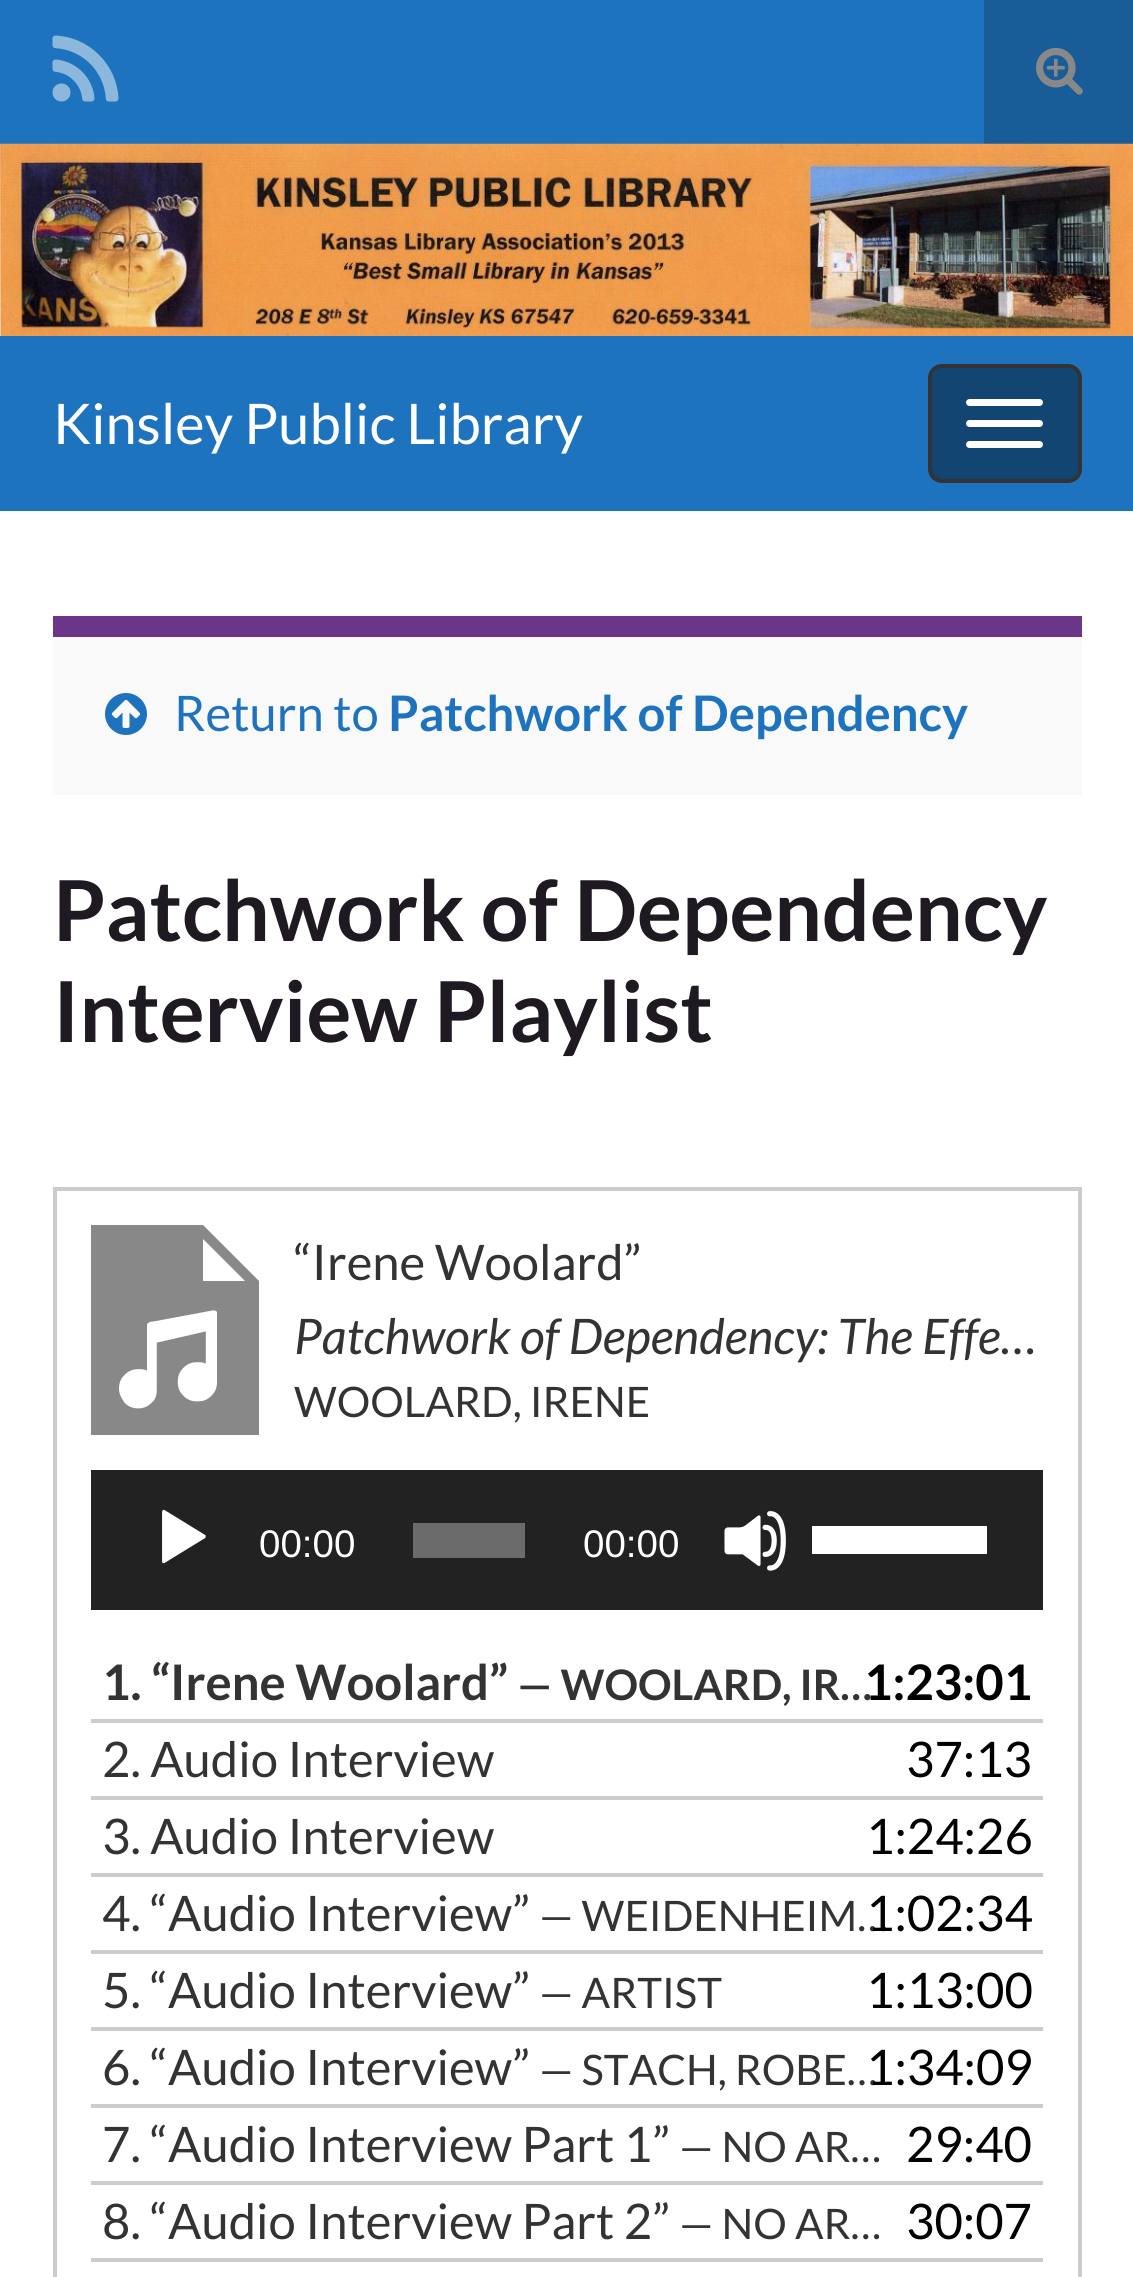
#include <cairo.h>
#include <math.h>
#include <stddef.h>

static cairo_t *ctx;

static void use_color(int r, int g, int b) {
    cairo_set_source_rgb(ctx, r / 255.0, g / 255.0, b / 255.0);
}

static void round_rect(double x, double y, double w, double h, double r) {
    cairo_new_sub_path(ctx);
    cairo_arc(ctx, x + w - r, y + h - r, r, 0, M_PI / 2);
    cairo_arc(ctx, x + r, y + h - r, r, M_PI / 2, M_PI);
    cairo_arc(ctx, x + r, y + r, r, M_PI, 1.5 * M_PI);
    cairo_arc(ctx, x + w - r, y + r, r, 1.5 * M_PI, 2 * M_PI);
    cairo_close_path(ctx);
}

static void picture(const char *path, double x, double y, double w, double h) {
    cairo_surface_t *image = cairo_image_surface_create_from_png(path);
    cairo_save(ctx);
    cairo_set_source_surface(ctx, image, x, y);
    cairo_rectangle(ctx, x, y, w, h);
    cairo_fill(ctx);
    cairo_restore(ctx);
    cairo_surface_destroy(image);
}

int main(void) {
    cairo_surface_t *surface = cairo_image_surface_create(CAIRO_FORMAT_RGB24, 1133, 2277);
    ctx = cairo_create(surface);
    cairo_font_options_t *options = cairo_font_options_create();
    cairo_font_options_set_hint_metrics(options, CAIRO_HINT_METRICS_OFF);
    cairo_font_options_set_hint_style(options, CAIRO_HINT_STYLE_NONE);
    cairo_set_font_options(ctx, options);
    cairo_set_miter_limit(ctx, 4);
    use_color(255, 255, 255);
    cairo_paint(ctx);
    use_color(30, 115, 190);
    cairo_rectangle(ctx, 0, 0, 984, 144);
    cairo_fill(ctx);
    picture("img1.png", 52, 35, 67, 67);
    use_color(24, 92, 152);
    cairo_rectangle(ctx, 984, 0, 149, 144);
    cairo_fill(ctx);
    picture("img2.png", 1036, 47, 47, 48);
    picture("img3.png", 0, 143, 1133, 193);
    use_color(30, 115, 190);
    cairo_rectangle(ctx, 0, 336, 1133, 175);
    cairo_fill(ctx);
    cairo_select_font_face(ctx, "Lato", CAIRO_FONT_SLANT_NORMAL, CAIRO_FONT_WEIGHT_NORMAL);
    cairo_set_font_size(ctx, 56);
    use_color(255, 255, 255);
    cairo_move_to(ctx, 53, 444);
    cairo_show_text(ctx, "Kinsley Public Library");
    use_color(18, 69, 114);
    round_rect(930, 366, 150, 115, 12);
    cairo_fill_preserve(ctx);
    use_color(51, 51, 51);
    cairo_set_line_width(ctx, 4);
    cairo_stroke(ctx);
    use_color(255, 255, 255);
    round_rect(966, 399, 77, 7, 3.5);
    cairo_fill(ctx);
    round_rect(966, 420, 77, 7, 3.5);
    cairo_fill(ctx);
    round_rect(966, 441, 77, 7, 3.5);
    cairo_fill(ctx);
    use_color(249, 249, 249);
    cairo_rectangle(ctx, 53, 637, 1029, 158);
    cairo_fill(ctx);
    use_color(107, 53, 137);
    cairo_rectangle(ctx, 53, 616, 1029, 21);
    cairo_fill(ctx);
    picture("img4.png", 105, 693, 42, 42);
    cairo_set_font_size(ctx, 49);
    use_color(30, 115, 190);
    cairo_move_to(ctx, 174, 731);
    cairo_show_text(ctx, "Return to");
    cairo_select_font_face(ctx, "Lato", CAIRO_FONT_SLANT_NORMAL, CAIRO_FONT_WEIGHT_BOLD);
    cairo_move_to(ctx, 388, 731);
    cairo_show_text(ctx, "Patchwork of Dependency");
    cairo_set_font_size(ctx, 84);
    use_color(31, 26, 34);
    cairo_move_to(ctx, 53, 941);
    cairo_show_text(ctx, "Patchwork of Dependency");
    cairo_move_to(ctx, 53, 1042);
    cairo_show_text(ctx, "Interview Playlist");
    cairo_rectangle(ctx, 55, 1189, 1025, 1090);
    use_color(204, 204, 204);
    cairo_stroke(ctx);
    picture("img5.png", 91, 1225, 168, 210);
    cairo_select_font_face(ctx, "Lato", CAIRO_FONT_SLANT_NORMAL, CAIRO_FONT_WEIGHT_NORMAL);
    cairo_set_font_size(ctx, 49);
    use_color(51, 51, 51);
    cairo_move_to(ctx, 294, 1280);
    cairo_show_text(ctx, "“Irene Woolard”");
    cairo_select_font_face(ctx, "Lato", CAIRO_FONT_SLANT_ITALIC, CAIRO_FONT_WEIGHT_NORMAL);
    cairo_move_to(ctx, 294, 1354);
    cairo_show_text(ctx, "Patchwork of Dependency: The Effe…");
    cairo_select_font_face(ctx, "Lato", CAIRO_FONT_SLANT_NORMAL, CAIRO_FONT_WEIGHT_NORMAL);
    cairo_set_font_size(ctx, 42);
    cairo_move_to(ctx, 294, 1417);
    cairo_show_text(ctx, "WOOLARD, IRENE");
    use_color(34, 34, 34);
    cairo_rectangle(ctx, 91, 1470, 952, 140);
    cairo_fill(ctx);
    picture("img6.png", 162, 1509, 44, 55);
    cairo_select_font_face(ctx, "Liberation Sans", CAIRO_FONT_SLANT_NORMAL, CAIRO_FONT_WEIGHT_NORMAL);
    cairo_set_font_size(ctx, 38.5);
    use_color(255, 255, 255);
    cairo_move_to(ctx, 259, 1557);
    cairo_show_text(ctx, "00:00");
    use_color(107, 107, 107);
    cairo_rectangle(ctx, 413, 1523, 112, 35);
    cairo_fill(ctx);
    use_color(255, 255, 255);
    cairo_move_to(ctx, 583, 1557);
    cairo_show_text(ctx, "00:00");
    picture("img7.png", 724, 1511, 62, 60);
    cairo_rectangle(ctx, 812, 1526, 175, 28);
    cairo_fill(ctx);
    use_color(204, 204, 204);
    cairo_rectangle(ctx, 91, 1719, 952, 4);
    cairo_fill(ctx);
    cairo_select_font_face(ctx, "Lato", CAIRO_FONT_SLANT_NORMAL, CAIRO_FONT_WEIGHT_BOLD);
    cairo_set_font_size(ctx, 49);
    use_color(51, 51, 51);
    cairo_move_to(ctx, 102, 1700);
    cairo_show_text(ctx, "1. “Irene Woolard”");
    cairo_set_font_size(ctx, 42);
    cairo_move_to(ctx, 517, 1700);
    cairo_show_text(ctx, "— WOOLARD, IR…");
    cairo_set_font_size(ctx, 49);
    use_color(0, 0, 0);
    cairo_move_to(ctx, 864, 1700);
    cairo_show_text(ctx, "1:23:01");
    use_color(204, 204, 204);
    cairo_rectangle(ctx, 91, 1796, 952, 4);
    cairo_fill(ctx);
    cairo_select_font_face(ctx, "Lato", CAIRO_FONT_SLANT_NORMAL, CAIRO_FONT_WEIGHT_NORMAL);
    use_color(51, 51, 51);
    cairo_move_to(ctx, 102, 1777);
    cairo_show_text(ctx, "2. Audio Interview");
    use_color(0, 0, 0);
    cairo_move_to(ctx, 906, 1777);
    cairo_show_text(ctx, "37:13");
    use_color(204, 204, 204);
    cairo_rectangle(ctx, 91, 1873, 952, 4);
    cairo_fill(ctx);
    use_color(51, 51, 51);
    cairo_move_to(ctx, 102, 1854);
    cairo_show_text(ctx, "3. Audio Interview");
    use_color(0, 0, 0);
    cairo_move_to(ctx, 866, 1854);
    cairo_show_text(ctx, "1:24:26");
    use_color(204, 204, 204);
    cairo_rectangle(ctx, 91, 1950, 952, 4);
    cairo_fill(ctx);
    use_color(51, 51, 51);
    cairo_move_to(ctx, 102, 1931);
    cairo_show_text(ctx, "4. “Audio Interview”");
    cairo_set_font_size(ctx, 42);
    cairo_move_to(ctx, 539, 1931);
    cairo_show_text(ctx, "— WEIDENHEIM…");
    cairo_set_font_size(ctx, 49);
    use_color(0, 0, 0);
    cairo_move_to(ctx, 866, 1931);
    cairo_show_text(ctx, "1:02:34");
    use_color(204, 204, 204);
    cairo_rectangle(ctx, 91, 2027, 952, 4);
    cairo_fill(ctx);
    use_color(51, 51, 51);
    cairo_move_to(ctx, 102, 2008);
    cairo_show_text(ctx, "5. “Audio Interview”");
    cairo_set_font_size(ctx, 42);
    cairo_move_to(ctx, 539, 2008);
    cairo_show_text(ctx, "— ARTIST");
    cairo_set_font_size(ctx, 49);
    use_color(0, 0, 0);
    cairo_move_to(ctx, 866, 2008);
    cairo_show_text(ctx, "1:13:00");
    use_color(204, 204, 204);
    cairo_rectangle(ctx, 91, 2104, 952, 4);
    cairo_fill(ctx);
    use_color(51, 51, 51);
    cairo_move_to(ctx, 102, 2085);
    cairo_show_text(ctx, "6. “Audio Interview”");
    cairo_set_font_size(ctx, 42);
    cairo_move_to(ctx, 539, 2085);
    cairo_show_text(ctx, "— STACH, ROBE…");
    cairo_set_font_size(ctx, 49);
    use_color(0, 0, 0);
    cairo_move_to(ctx, 866, 2085);
    cairo_show_text(ctx, "1:34:09");
    use_color(204, 204, 204);
    cairo_rectangle(ctx, 91, 2181, 952, 4);
    cairo_fill(ctx);
    use_color(51, 51, 51);
    cairo_move_to(ctx, 102, 2162);
    cairo_show_text(ctx, "7. “Audio Interview Part 1”");
    cairo_set_font_size(ctx, 42);
    cairo_move_to(ctx, 679, 2162);
    cairo_show_text(ctx, "— NO AR…");
    cairo_set_font_size(ctx, 49);
    use_color(0, 0, 0);
    cairo_move_to(ctx, 906, 2162);
    cairo_show_text(ctx, "29:40");
    use_color(204, 204, 204);
    cairo_rectangle(ctx, 91, 2258, 952, 4);
    cairo_fill(ctx);
    use_color(51, 51, 51);
    cairo_move_to(ctx, 102, 2239);
    cairo_show_text(ctx, "8. “Audio Interview Part 2”");
    cairo_set_font_size(ctx, 42);
    cairo_move_to(ctx, 679, 2239);
    cairo_show_text(ctx, "— NO AR…");
    cairo_set_font_size(ctx, 49);
    use_color(0, 0, 0);
    cairo_move_to(ctx, 906, 2239);
    cairo_show_text(ctx, "30:07");
    cairo_surface_write_to_png(surface, "result.png");
    cairo_font_options_destroy(options);
    cairo_destroy(ctx);
    cairo_surface_destroy(surface);
    return 0;
}
